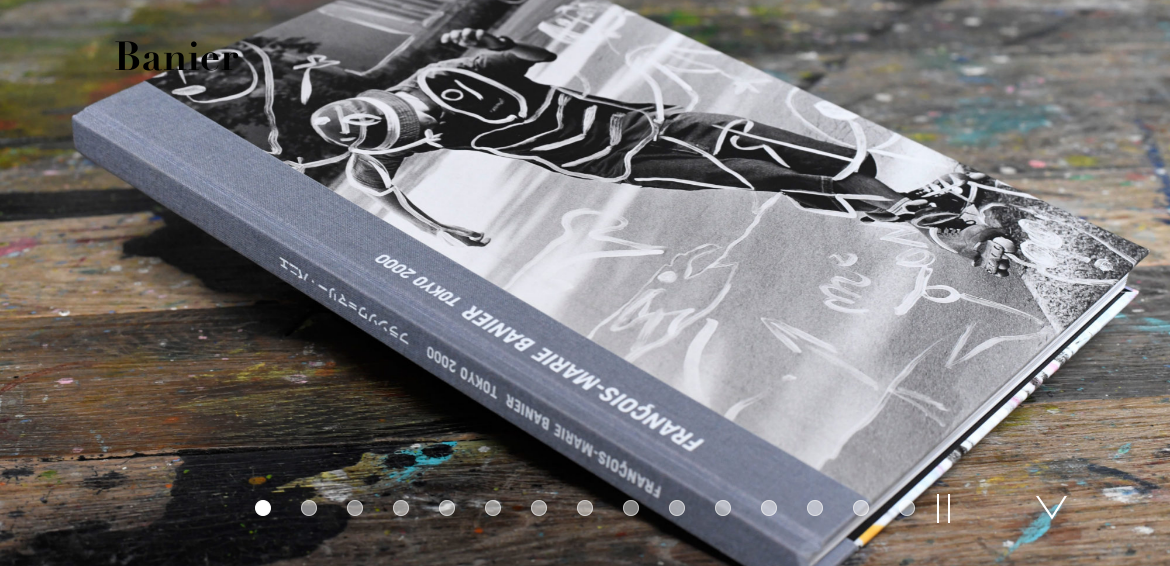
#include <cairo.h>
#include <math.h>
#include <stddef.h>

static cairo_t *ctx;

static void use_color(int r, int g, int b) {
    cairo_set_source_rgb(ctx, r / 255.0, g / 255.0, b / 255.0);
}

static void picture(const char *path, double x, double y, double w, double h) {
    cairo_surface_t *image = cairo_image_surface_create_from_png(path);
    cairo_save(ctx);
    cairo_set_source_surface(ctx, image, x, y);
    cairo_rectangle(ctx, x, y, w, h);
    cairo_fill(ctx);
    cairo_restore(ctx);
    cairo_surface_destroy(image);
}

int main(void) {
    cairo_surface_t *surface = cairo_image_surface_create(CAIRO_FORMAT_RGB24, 1170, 566);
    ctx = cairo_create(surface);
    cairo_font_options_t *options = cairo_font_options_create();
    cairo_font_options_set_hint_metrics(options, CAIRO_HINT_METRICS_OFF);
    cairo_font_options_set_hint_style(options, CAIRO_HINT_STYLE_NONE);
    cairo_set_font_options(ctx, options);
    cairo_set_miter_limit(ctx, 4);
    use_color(255, 255, 255);
    cairo_paint(ctx);
    picture("img1.png", 0, 0, 1170, 566);
    use_color(255, 255, 255);
    cairo_arc(ctx, 263, 508, 7.5, 0, 2 * M_PI);
    cairo_fill_preserve(ctx);
    cairo_set_line_width(ctx, 1);
    cairo_stroke(ctx);
    cairo_set_source_rgba(ctx, 1, 1, 1, 0.5);
    cairo_arc(ctx, 309, 508, 8, 0, 2 * M_PI);
    cairo_fill(ctx);
    cairo_arc(ctx, 309, 508, 7.5, 0, 2 * M_PI);
    cairo_stroke(ctx);
    cairo_arc(ctx, 355, 508, 8, 0, 2 * M_PI);
    cairo_fill(ctx);
    cairo_arc(ctx, 355, 508, 7.5, 0, 2 * M_PI);
    cairo_stroke(ctx);
    cairo_arc(ctx, 401, 508, 8, 0, 2 * M_PI);
    cairo_fill(ctx);
    cairo_arc(ctx, 401, 508, 7.5, 0, 2 * M_PI);
    cairo_stroke(ctx);
    cairo_arc(ctx, 447, 508, 8, 0, 2 * M_PI);
    cairo_fill(ctx);
    cairo_arc(ctx, 447, 508, 7.5, 0, 2 * M_PI);
    cairo_stroke(ctx);
    cairo_arc(ctx, 493, 508, 8, 0, 2 * M_PI);
    cairo_fill(ctx);
    cairo_arc(ctx, 493, 508, 7.5, 0, 2 * M_PI);
    cairo_stroke(ctx);
    cairo_arc(ctx, 539, 508, 8, 0, 2 * M_PI);
    cairo_fill(ctx);
    cairo_arc(ctx, 539, 508, 7.5, 0, 2 * M_PI);
    cairo_stroke(ctx);
    cairo_arc(ctx, 585, 508, 8, 0, 2 * M_PI);
    cairo_fill(ctx);
    cairo_arc(ctx, 585, 508, 7.5, 0, 2 * M_PI);
    cairo_stroke(ctx);
    cairo_arc(ctx, 631, 508, 8, 0, 2 * M_PI);
    cairo_fill(ctx);
    cairo_arc(ctx, 631, 508, 7.5, 0, 2 * M_PI);
    cairo_stroke(ctx);
    cairo_arc(ctx, 677, 508, 8, 0, 2 * M_PI);
    cairo_fill(ctx);
    cairo_arc(ctx, 677, 508, 7.5, 0, 2 * M_PI);
    cairo_stroke(ctx);
    cairo_arc(ctx, 723, 508, 8, 0, 2 * M_PI);
    cairo_fill(ctx);
    cairo_arc(ctx, 723, 508, 7.5, 0, 2 * M_PI);
    cairo_stroke(ctx);
    cairo_arc(ctx, 769, 508, 8, 0, 2 * M_PI);
    cairo_fill(ctx);
    cairo_arc(ctx, 769, 508, 7.5, 0, 2 * M_PI);
    cairo_stroke(ctx);
    cairo_arc(ctx, 815, 508, 8, 0, 2 * M_PI);
    cairo_fill(ctx);
    cairo_arc(ctx, 815, 508, 7.5, 0, 2 * M_PI);
    cairo_stroke(ctx);
    cairo_arc(ctx, 861, 508, 8, 0, 2 * M_PI);
    cairo_fill(ctx);
    cairo_arc(ctx, 861, 508, 7.5, 0, 2 * M_PI);
    cairo_stroke(ctx);
    cairo_arc(ctx, 907, 508, 8, 0, 2 * M_PI);
    cairo_fill(ctx);
    cairo_arc(ctx, 907, 508, 7.5, 0, 2 * M_PI);
    cairo_stroke(ctx);
    use_color(255, 255, 255);
    cairo_rectangle(ctx, 937, 494, 2, 29);
    cairo_fill(ctx);
    cairo_rectangle(ctx, 948, 494, 2, 29);
    cairo_fill(ctx);
    cairo_new_path(ctx);
    cairo_move_to(ctx, 1064.5, 496);
    cairo_line_to(ctx, 1052, 515.5);
    cairo_line_to(ctx, 1038.5, 496);
    cairo_line_to(ctx, 1036, 496);
    cairo_line_to(ctx, 1052, 519.5);
    cairo_line_to(ctx, 1067, 496);
    cairo_close_path(ctx);
    cairo_fill(ctx);
    cairo_select_font_face(ctx, "Didot", CAIRO_FONT_SLANT_NORMAL, CAIRO_FONT_WEIGHT_BOLD);
    cairo_set_font_size(ctx, 40);
    use_color(0, 0, 0);
    cairo_move_to(ctx, 114, 70);
    cairo_show_text(ctx, "Banier");
    cairo_surface_write_to_png(surface, "result.png");
    cairo_font_options_destroy(options);
    cairo_destroy(ctx);
    cairo_surface_destroy(surface);
    return 0;
}
